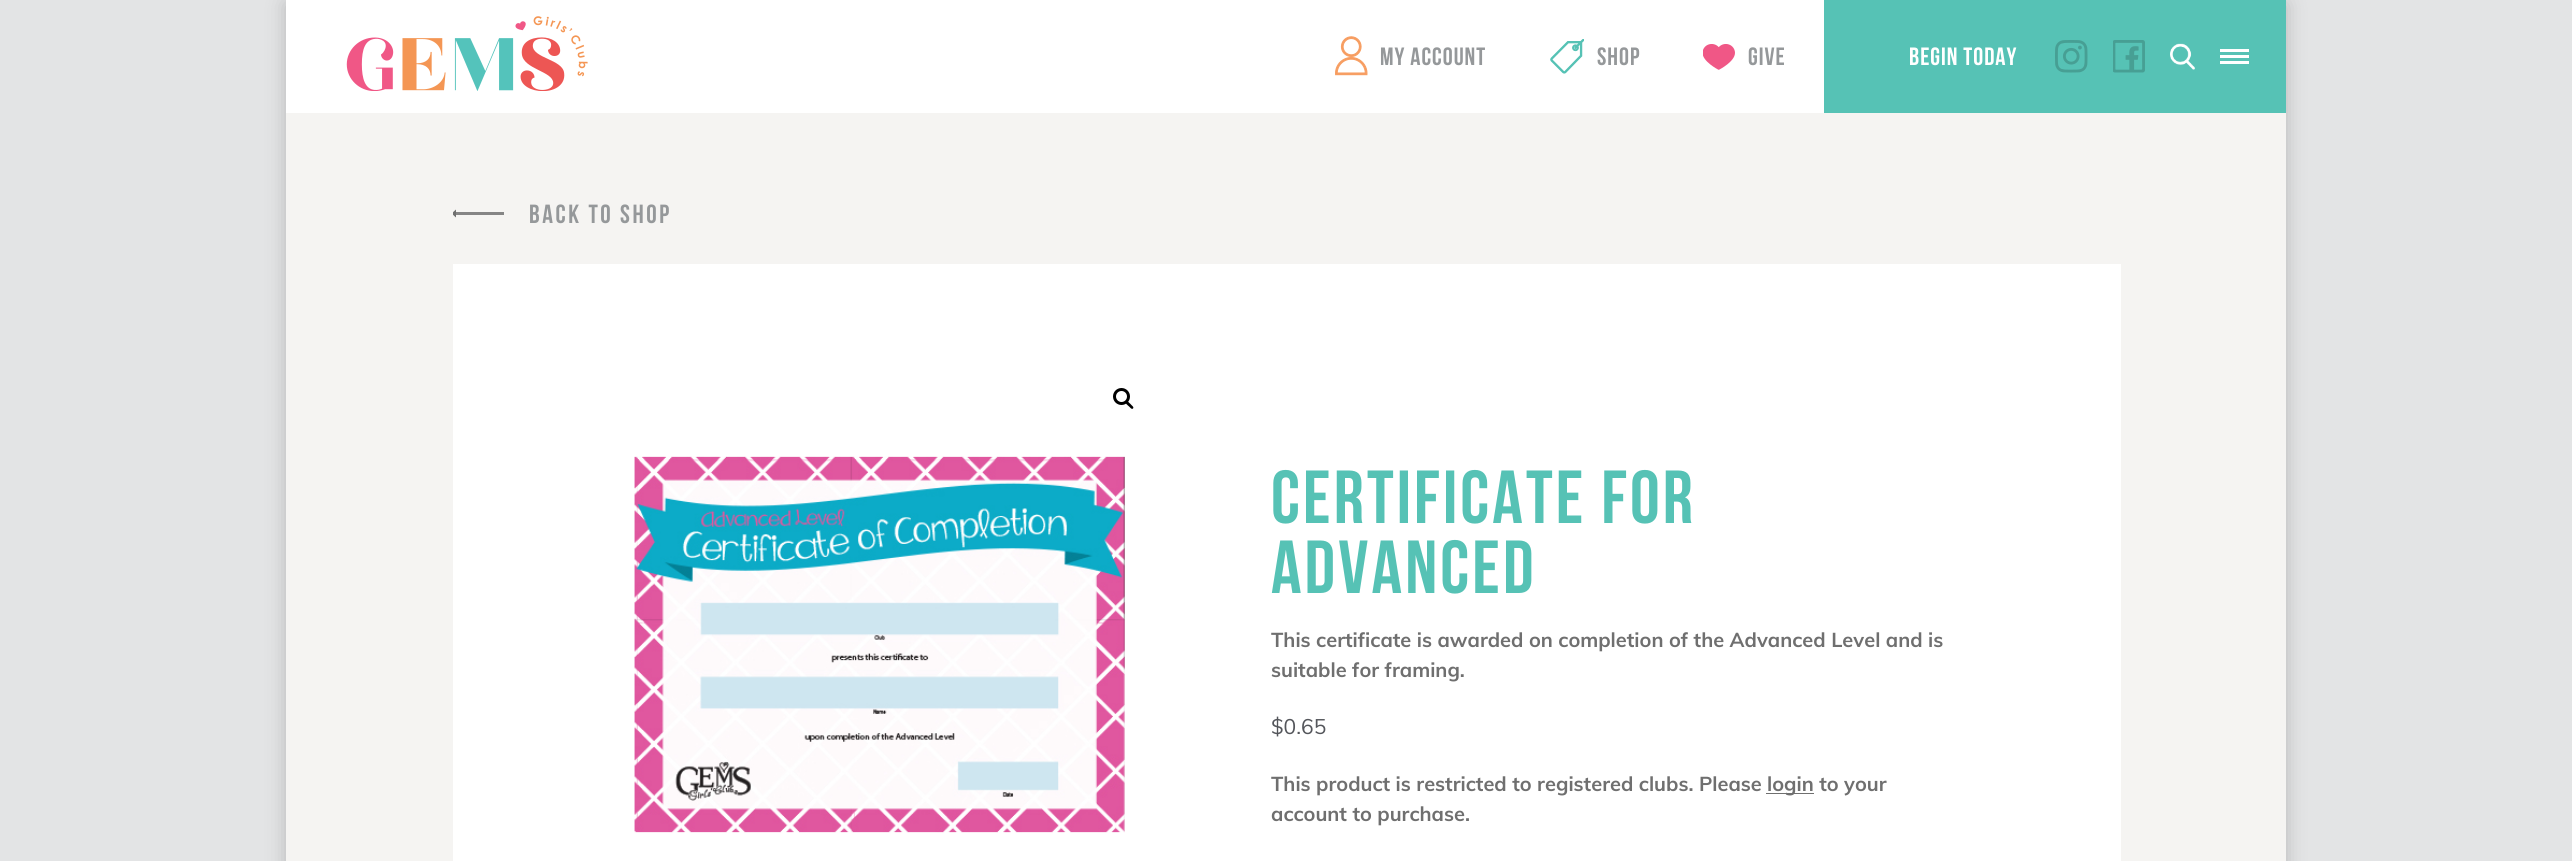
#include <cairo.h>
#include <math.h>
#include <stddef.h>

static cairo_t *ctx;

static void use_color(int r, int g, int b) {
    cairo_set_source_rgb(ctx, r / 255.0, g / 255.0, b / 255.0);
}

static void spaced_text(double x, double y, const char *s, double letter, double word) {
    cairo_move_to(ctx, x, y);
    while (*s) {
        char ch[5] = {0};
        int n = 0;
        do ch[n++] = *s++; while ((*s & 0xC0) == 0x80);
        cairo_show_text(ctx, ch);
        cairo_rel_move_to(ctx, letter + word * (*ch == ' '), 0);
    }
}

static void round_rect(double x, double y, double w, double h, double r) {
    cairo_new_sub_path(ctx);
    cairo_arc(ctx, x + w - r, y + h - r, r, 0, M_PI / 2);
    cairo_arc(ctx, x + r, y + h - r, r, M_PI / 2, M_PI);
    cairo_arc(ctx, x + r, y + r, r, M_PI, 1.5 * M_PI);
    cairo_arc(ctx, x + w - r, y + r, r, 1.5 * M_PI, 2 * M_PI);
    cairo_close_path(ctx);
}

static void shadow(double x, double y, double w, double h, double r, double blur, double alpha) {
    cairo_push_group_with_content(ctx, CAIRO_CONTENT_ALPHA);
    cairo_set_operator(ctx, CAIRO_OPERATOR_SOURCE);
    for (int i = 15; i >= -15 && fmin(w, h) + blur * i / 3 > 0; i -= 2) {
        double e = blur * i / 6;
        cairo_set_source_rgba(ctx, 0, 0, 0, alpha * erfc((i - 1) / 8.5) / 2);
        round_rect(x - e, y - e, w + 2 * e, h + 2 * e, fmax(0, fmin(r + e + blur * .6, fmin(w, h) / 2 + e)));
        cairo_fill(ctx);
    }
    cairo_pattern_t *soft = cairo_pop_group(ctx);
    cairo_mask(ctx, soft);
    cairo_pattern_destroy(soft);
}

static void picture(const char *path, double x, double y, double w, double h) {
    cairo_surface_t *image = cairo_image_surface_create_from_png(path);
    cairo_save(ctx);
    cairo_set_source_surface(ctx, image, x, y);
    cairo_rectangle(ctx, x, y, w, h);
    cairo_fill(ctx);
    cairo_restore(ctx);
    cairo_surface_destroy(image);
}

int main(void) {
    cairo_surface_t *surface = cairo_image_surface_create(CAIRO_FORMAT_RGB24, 2572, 861);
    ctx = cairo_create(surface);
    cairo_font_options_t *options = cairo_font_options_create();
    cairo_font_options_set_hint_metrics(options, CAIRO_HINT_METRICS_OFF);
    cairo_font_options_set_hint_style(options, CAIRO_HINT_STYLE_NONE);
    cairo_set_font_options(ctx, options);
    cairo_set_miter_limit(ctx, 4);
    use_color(227, 228, 229);
    cairo_paint(ctx);
    use_color(0, 0, 0);
    shadow(286, 4, 2000, 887, 0, 10, 0.2);
    use_color(255, 255, 255);
    cairo_rectangle(ctx, 286, 0, 1538, 113);
    cairo_fill(ctx);
    picture("img1.png", 346, 16, 242, 75);
    picture("img2.png", 1335, 36, 33, 40);
    cairo_select_font_face(ctx, "Bebas Neue", CAIRO_FONT_SLANT_NORMAL, CAIRO_FONT_WEIGHT_NORMAL);
    cairo_set_font_size(ctx, 25);
    use_color(149, 152, 154);
    spaced_text(1380, 65, "MY ACCOUNT", 1, 0);
    picture("img3.png", 1550, 39, 34, 35);
    spaced_text(1597, 65, "SHOP", 1, 0);
    picture("img4.png", 1703, 44, 32, 26);
    spaced_text(1748, 65, "GIVE", 1, 0);
    use_color(86, 194, 181);
    cairo_rectangle(ctx, 1824, 0, 462, 113);
    cairo_fill(ctx);
    use_color(255, 255, 255);
    spaced_text(1909, 65, "BEGIN TODAY", 1, 0);
    picture("img5.png", 2055, 40, 33, 33);
    picture("img6.png", 2113, 40, 32, 33);
    picture("img7.png", 2170, 43, 25, 27);
    cairo_rectangle(ctx, 2220, 49, 29, 3);
    cairo_fill(ctx);
    cairo_rectangle(ctx, 2220, 55, 29, 3);
    cairo_fill(ctx);
    cairo_rectangle(ctx, 2220, 61, 29, 3);
    cairo_fill(ctx);
    use_color(245, 244, 242);
    cairo_rectangle(ctx, 286, 113, 2000, 748);
    cairo_fill(ctx);
    use_color(133, 133, 133);
    cairo_rectangle(ctx, 456, 212, 48, 3);
    cairo_fill(ctx);
    cairo_save(ctx);
    cairo_rectangle(ctx, 453, 209, 52, 9);
    cairo_clip(ctx);
    use_color(111, 111, 111);
    cairo_new_path(ctx);
    cairo_move_to(ctx, 456, 217.5);
    cairo_line_to(ctx, 456, 209.5);
    cairo_line_to(ctx, 451.5, 213.5);
    cairo_close_path(ctx);
    cairo_fill(ctx);
    cairo_restore(ctx);
    cairo_set_font_size(ctx, 26.25);
    use_color(149, 152, 154);
    spaced_text(529, 223, "BACK TO SHOP", 2.6, 0);
    use_color(255, 255, 255);
    cairo_rectangle(ctx, 453, 264, 1668, 597);
    cairo_fill(ctx);
    cairo_arc(ctx, 1121.5, 396.5, 7, 0, 2 * M_PI);
    use_color(0, 0, 0);
    cairo_set_line_width(ctx, 3);
    cairo_stroke(ctx);
    cairo_new_path(ctx);
    cairo_move_to(ctx, 1126, 401.5);
    cairo_curve_to(ctx, 1127.5, 400, 1129.5, 403.5, 1130.5, 404);
    cairo_curve_to(ctx, 1131, 405, 1134.5, 407, 1133, 408.5);
    cairo_curve_to(ctx, 1131.5, 410, 1129.5, 406.5, 1128.5, 406);
    cairo_curve_to(ctx, 1127.5, 405, 1124.5, 403, 1126, 401.5);
    cairo_close_path(ctx);
    cairo_fill(ctx);
    picture("img8.png", 634, 456, 491, 377);
    cairo_set_font_size(ctx, 75);
    use_color(86, 194, 181);
    spaced_text(1271, 523, "CERTIFICATE FOR", 3.1, 0);
    spaced_text(1271, 593, "ADVANCED", 3.1, 0);
    cairo_select_font_face(ctx, "Muli", CAIRO_FONT_SLANT_NORMAL, CAIRO_FONT_WEIGHT_BOLD);
    cairo_set_font_size(ctx, 20);
    use_color(111, 111, 111);
    cairo_move_to(ctx, 1271, 647);
    cairo_show_text(ctx, "This certificate is awarded on completion of the Advanced Level and is");
    cairo_move_to(ctx, 1271, 677);
    cairo_show_text(ctx, "suitable for framing.");
    cairo_select_font_face(ctx, "Muli", CAIRO_FONT_SLANT_NORMAL, CAIRO_FONT_WEIGHT_NORMAL);
    cairo_set_font_size(ctx, 21);
    use_color(84, 86, 91);
    cairo_move_to(ctx, 1271, 734);
    cairo_show_text(ctx, "$0.65");
    cairo_select_font_face(ctx, "Muli", CAIRO_FONT_SLANT_NORMAL, CAIRO_FONT_WEIGHT_BOLD);
    cairo_set_font_size(ctx, 20);
    use_color(111, 111, 111);
    cairo_move_to(ctx, 1271, 791);
    cairo_show_text(ctx, "This product is restricted to registered clubs. Please");
    cairo_rectangle(ctx, 1766, 793, 48, 1);
    cairo_fill(ctx);
    cairo_move_to(ctx, 1767, 791);
    cairo_show_text(ctx, "login to your");
    cairo_move_to(ctx, 1271, 821);
    cairo_show_text(ctx, "account to purchase.");
    cairo_surface_write_to_png(surface, "result.png");
    cairo_font_options_destroy(options);
    cairo_destroy(ctx);
    cairo_surface_destroy(surface);
    return 0;
}
